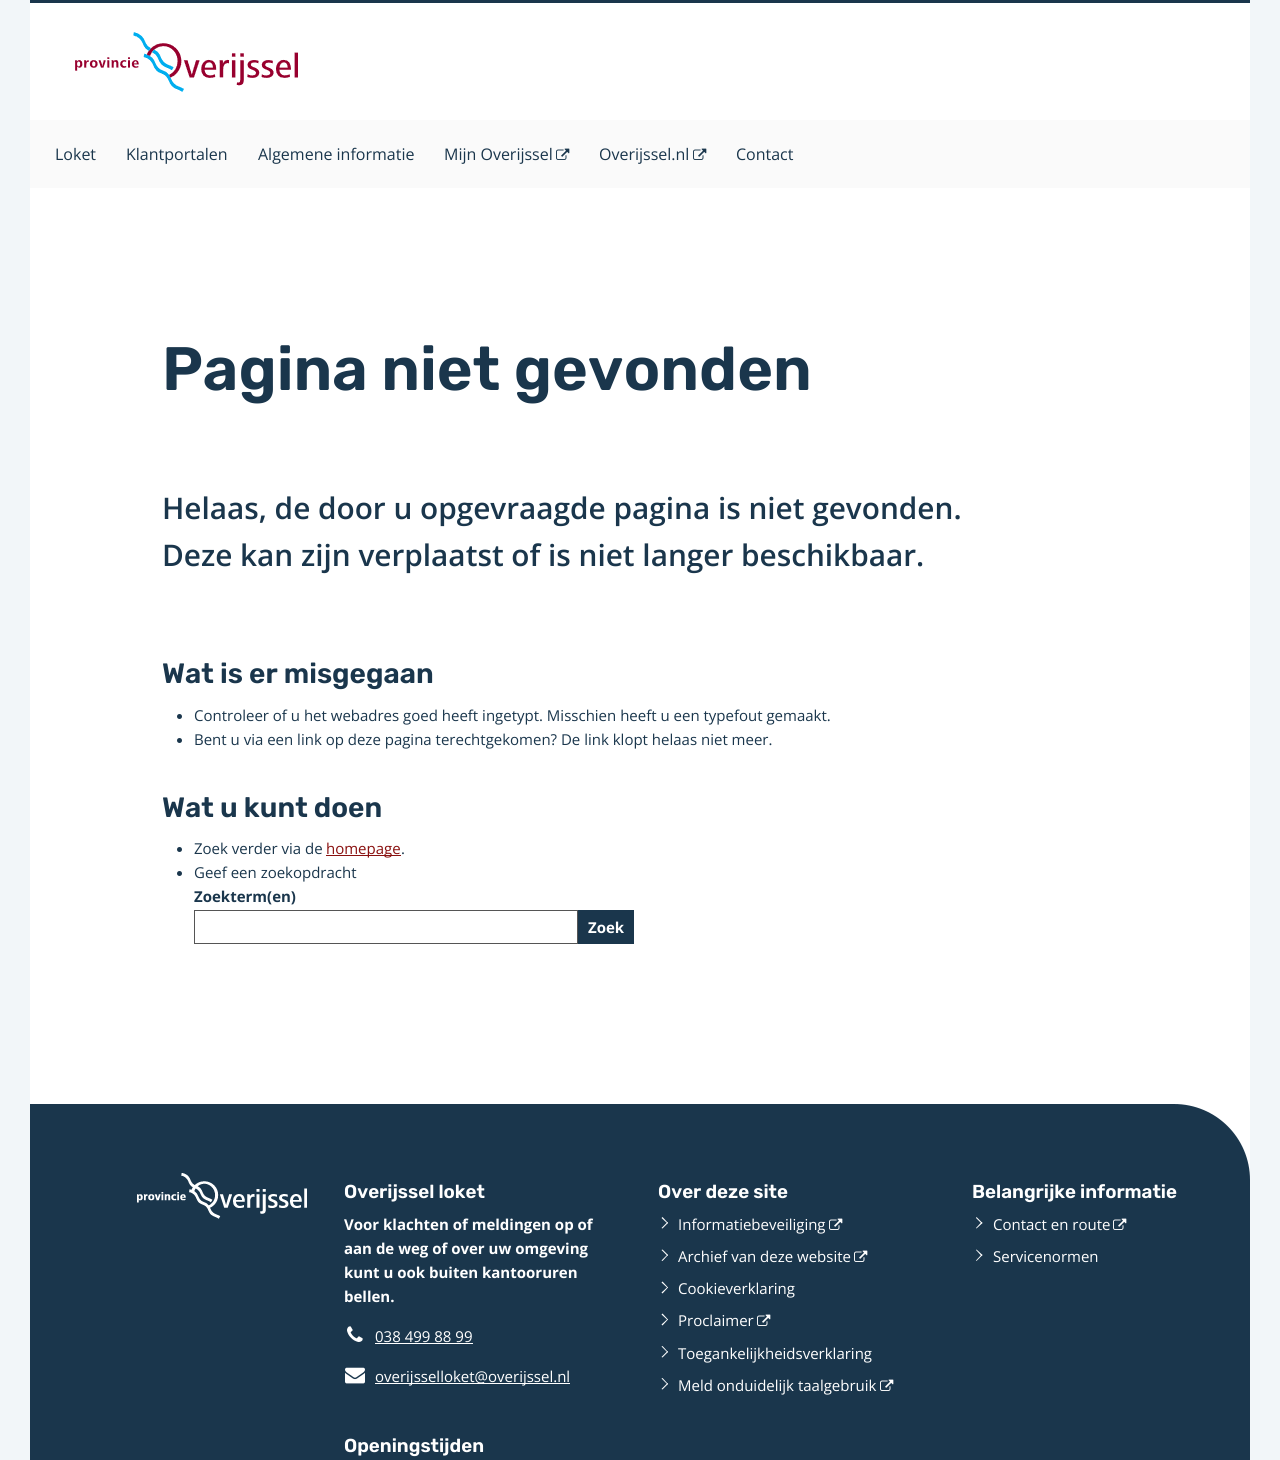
#include <cairo.h>
#include <math.h>
#include <stddef.h>

static cairo_t *ctx;

static void use_color(int r, int g, int b) {
    cairo_set_source_rgb(ctx, r / 255.0, g / 255.0, b / 255.0);
}

static void picture(const char *path, double x, double y, double w, double h) {
    cairo_surface_t *image = cairo_image_surface_create_from_png(path);
    cairo_save(ctx);
    cairo_set_source_surface(ctx, image, x, y);
    cairo_rectangle(ctx, x, y, w, h);
    cairo_fill(ctx);
    cairo_restore(ctx);
    cairo_surface_destroy(image);
}

int main(void) {
    cairo_surface_t *surface = cairo_image_surface_create(CAIRO_FORMAT_RGB24, 1280, 1460);
    ctx = cairo_create(surface);
    cairo_font_options_t *options = cairo_font_options_create();
    cairo_font_options_set_hint_metrics(options, CAIRO_HINT_METRICS_OFF);
    cairo_font_options_set_hint_style(options, CAIRO_HINT_STYLE_NONE);
    cairo_set_font_options(ctx, options);
    cairo_set_miter_limit(ctx, 4);
    use_color(242, 246, 249);
    cairo_paint(ctx);
    use_color(255, 255, 255);
    cairo_rectangle(ctx, 30, 3, 1220, 1177);
    cairo_fill(ctx);
    use_color(26, 54, 76);
    cairo_rectangle(ctx, 30, 0, 1220, 3);
    cairo_fill(ctx);
    picture("img1.png", 75, 32, 223, 60);
    use_color(250, 250, 250);
    cairo_rectangle(ctx, 30, 120, 1220, 68);
    cairo_fill(ctx);
    cairo_select_font_face(ctx, "Open Sans", CAIRO_FONT_SLANT_NORMAL, CAIRO_FONT_WEIGHT_NORMAL);
    cairo_set_font_size(ctx, 16);
    use_color(26, 54, 76);
    cairo_move_to(ctx, 55, 160);
    cairo_show_text(ctx, "Loket");
    cairo_move_to(ctx, 126, 160);
    cairo_show_text(ctx, "Klantportalen");
    cairo_move_to(ctx, 258, 160);
    cairo_show_text(ctx, "Algemene informatie");
    cairo_move_to(ctx, 444, 160);
    cairo_show_text(ctx, "Mijn Overijssel");
    picture("img2.png", 556, 148, 14, 12);
    cairo_move_to(ctx, 599, 160);
    cairo_show_text(ctx, "Overijssel.nl");
    picture("img2.png", 693, 148, 14, 12);
    cairo_move_to(ctx, 736, 160);
    cairo_show_text(ctx, "Contact");
    cairo_select_font_face(ctx, "Rubik SemiBold", CAIRO_FONT_SLANT_NORMAL, CAIRO_FONT_WEIGHT_NORMAL);
    cairo_set_font_size(ctx, 61.25);
    cairo_move_to(ctx, 162, 390);
    cairo_show_text(ctx, "Pagina niet gevonden");
    cairo_select_font_face(ctx, "Open Sans SemiBold", CAIRO_FONT_SLANT_NORMAL, CAIRO_FONT_WEIGHT_NORMAL);
    cairo_set_font_size(ctx, 29.75);
    cairo_move_to(ctx, 162, 519);
    cairo_show_text(ctx, "Helaas, de door u opgevraagde pagina is niet gevonden.");
    cairo_move_to(ctx, 162, 566);
    cairo_show_text(ctx, "Deze kan zijn verplaatst of is niet langer beschikbaar.");
    cairo_select_font_face(ctx, "Rubik SemiBold", CAIRO_FONT_SLANT_NORMAL, CAIRO_FONT_WEIGHT_NORMAL);
    cairo_set_font_size(ctx, 28);
    cairo_move_to(ctx, 162, 683);
    cairo_show_text(ctx, "Wat is er misgegaan");
    cairo_new_path(ctx);
    cairo_arc(ctx, 179.5, 716.5, 2.5, 0, 2 * M_PI);
    cairo_fill(ctx);
    cairo_select_font_face(ctx, "Open Sans", CAIRO_FONT_SLANT_NORMAL, CAIRO_FONT_WEIGHT_NORMAL);
    cairo_set_font_size(ctx, 15);
    cairo_move_to(ctx, 194, 721);
    cairo_show_text(ctx, "Controleer of u het webadres goed heeft ingetypt. Misschien heeft u een typefout gemaakt.");
    cairo_new_path(ctx);
    cairo_arc(ctx, 179.5, 740.5, 2.5, 0, 2 * M_PI);
    cairo_fill(ctx);
    cairo_move_to(ctx, 194, 745);
    cairo_show_text(ctx, "Bent u via een link op deze pagina terechtgekomen? De link klopt helaas niet meer.");
    cairo_select_font_face(ctx, "Rubik SemiBold", CAIRO_FONT_SLANT_NORMAL, CAIRO_FONT_WEIGHT_NORMAL);
    cairo_set_font_size(ctx, 28);
    cairo_move_to(ctx, 162, 817);
    cairo_show_text(ctx, "Wat u kunt doen");
    cairo_new_path(ctx);
    cairo_arc(ctx, 179.5, 849.5, 2.5, 0, 2 * M_PI);
    cairo_fill(ctx);
    cairo_select_font_face(ctx, "Open Sans", CAIRO_FONT_SLANT_NORMAL, CAIRO_FONT_WEIGHT_NORMAL);
    cairo_set_font_size(ctx, 15);
    cairo_move_to(ctx, 194, 854);
    cairo_show_text(ctx, "Zoek verder via de");
    use_color(137, 16, 15);
    cairo_rectangle(ctx, 326, 855, 75, 1);
    cairo_fill(ctx);
    cairo_move_to(ctx, 326, 854);
    cairo_show_text(ctx, "homepage");
    use_color(26, 54, 76);
    cairo_move_to(ctx, 401, 854);
    cairo_show_text(ctx, ".");
    cairo_new_path(ctx);
    cairo_arc(ctx, 179.5, 873.5, 2.5, 0, 2 * M_PI);
    cairo_fill(ctx);
    cairo_move_to(ctx, 194, 878);
    cairo_show_text(ctx, "Geef een zoekopdracht");
    cairo_select_font_face(ctx, "Open Sans", CAIRO_FONT_SLANT_NORMAL, CAIRO_FONT_WEIGHT_BOLD);
    cairo_move_to(ctx, 194, 902);
    cairo_show_text(ctx, "Zoekterm(en)");
    cairo_rectangle(ctx, 194.5, 910.5, 383, 33);
    use_color(85, 85, 85);
    cairo_set_line_width(ctx, 1);
    cairo_stroke(ctx);
    use_color(26, 54, 76);
    cairo_rectangle(ctx, 578, 910, 56, 34);
    cairo_fill(ctx);
    use_color(255, 255, 255);
    cairo_move_to(ctx, 588, 933);
    cairo_show_text(ctx, "Zoek");
    use_color(26, 54, 76);
    cairo_new_path(ctx);
    cairo_move_to(ctx, 30, 1104);
    cairo_line_to(ctx, 1174, 1104);
    cairo_curve_to(ctx, 1216, 1104, 1250, 1138, 1250, 1180);
    cairo_line_to(ctx, 1250, 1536);
    cairo_line_to(ctx, 30, 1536);
    cairo_close_path(ctx);
    cairo_fill(ctx);
    picture("img3.png", 137, 1173, 170, 46);
    cairo_select_font_face(ctx, "Rubik SemiBold", CAIRO_FONT_SLANT_NORMAL, CAIRO_FONT_WEIGHT_NORMAL);
    cairo_set_font_size(ctx, 18.75);
    use_color(255, 255, 255);
    cairo_move_to(ctx, 344, 1198);
    cairo_show_text(ctx, "Overijssel loket");
    cairo_select_font_face(ctx, "Open Sans", CAIRO_FONT_SLANT_NORMAL, CAIRO_FONT_WEIGHT_BOLD);
    cairo_set_font_size(ctx, 15);
    cairo_move_to(ctx, 344, 1230);
    cairo_show_text(ctx, "Voor klachten of meldingen op of");
    cairo_move_to(ctx, 344, 1254);
    cairo_show_text(ctx, "aan de weg of over uw omgeving");
    cairo_move_to(ctx, 344, 1278);
    cairo_show_text(ctx, "kunt u ook buiten kantooruren");
    cairo_move_to(ctx, 344, 1302);
    cairo_show_text(ctx, "bellen.");
    picture("img4.png", 347, 1326, 16, 16);
    cairo_select_font_face(ctx, "Open Sans", CAIRO_FONT_SLANT_NORMAL, CAIRO_FONT_WEIGHT_NORMAL);
    cairo_move_to(ctx, 375, 1342);
    cairo_show_text(ctx, "038 499 88 99");
    cairo_rectangle(ctx, 375, 1343, 98, 1);
    cairo_fill(ctx);
    picture("img5.png", 345, 1367, 20, 17);
    cairo_rectangle(ctx, 375, 1383, 195, 1);
    cairo_fill(ctx);
    cairo_move_to(ctx, 375, 1382);
    cairo_show_text(ctx, "overijsselloket@overijssel.nl");
    cairo_select_font_face(ctx, "Rubik SemiBold", CAIRO_FONT_SLANT_NORMAL, CAIRO_FONT_WEIGHT_NORMAL);
    cairo_set_font_size(ctx, 18.75);
    cairo_move_to(ctx, 344, 1452);
    cairo_show_text(ctx, "Openingstijden");
    cairo_move_to(ctx, 658, 1198);
    cairo_show_text(ctx, "Over deze site");
    cairo_new_path(ctx);
    cairo_move_to(ctx, 662.5, 1217);
    cairo_line_to(ctx, 668, 1223);
    cairo_line_to(ctx, 667.5, 1223.5);
    cairo_line_to(ctx, 661.5, 1218);
    cairo_close_path(ctx);
    cairo_fill(ctx);
    cairo_new_path(ctx);
    cairo_move_to(ctx, 667.5, 1222);
    cairo_line_to(ctx, 668, 1223);
    cairo_line_to(ctx, 662.5, 1228.5);
    cairo_line_to(ctx, 661.5, 1228);
    cairo_close_path(ctx);
    cairo_move_to(ctx, 662.5, 1249.5);
    cairo_line_to(ctx, 668, 1255);
    cairo_line_to(ctx, 667.5, 1256);
    cairo_line_to(ctx, 661.5, 1250);
    cairo_close_path(ctx);
    cairo_fill(ctx);
    cairo_select_font_face(ctx, "Open Sans", CAIRO_FONT_SLANT_NORMAL, CAIRO_FONT_WEIGHT_NORMAL);
    cairo_set_font_size(ctx, 15);
    cairo_move_to(ctx, 678, 1230);
    cairo_show_text(ctx, "Informatiebeveiliging");
    picture("img6.png", 829, 1218, 14, 12);
    cairo_new_path(ctx);
    cairo_move_to(ctx, 667.5, 1254.5);
    cairo_line_to(ctx, 668, 1255);
    cairo_line_to(ctx, 662.5, 1261);
    cairo_line_to(ctx, 661.5, 1260.5);
    cairo_close_path(ctx);
    cairo_move_to(ctx, 662.5, 1281.5);
    cairo_line_to(ctx, 668, 1287.5);
    cairo_line_to(ctx, 667.5, 1288);
    cairo_line_to(ctx, 661.5, 1282.5);
    cairo_close_path(ctx);
    cairo_fill(ctx);
    cairo_move_to(ctx, 678, 1262);
    cairo_show_text(ctx, "Archief van deze website");
    picture("img6.png", 854, 1250, 14, 12);
    cairo_new_path(ctx);
    cairo_move_to(ctx, 667.5, 1287);
    cairo_line_to(ctx, 668, 1287.5);
    cairo_line_to(ctx, 662.5, 1293.5);
    cairo_line_to(ctx, 661.5, 1292.5);
    cairo_close_path(ctx);
    cairo_move_to(ctx, 662.5, 1313.5);
    cairo_line_to(ctx, 668, 1319.5);
    cairo_line_to(ctx, 667.5, 1320);
    cairo_line_to(ctx, 661.5, 1314.5);
    cairo_close_path(ctx);
    cairo_fill(ctx);
    cairo_move_to(ctx, 678, 1294);
    cairo_show_text(ctx, "Cookieverklaring");
    cairo_new_path(ctx);
    cairo_move_to(ctx, 667.5, 1319);
    cairo_line_to(ctx, 668, 1319.5);
    cairo_line_to(ctx, 662.5, 1325.5);
    cairo_line_to(ctx, 661.5, 1324.5);
    cairo_close_path(ctx);
    cairo_move_to(ctx, 662.5, 1346);
    cairo_line_to(ctx, 668, 1352);
    cairo_line_to(ctx, 667.5, 1352.5);
    cairo_line_to(ctx, 661.5, 1346.5);
    cairo_close_path(ctx);
    cairo_fill(ctx);
    cairo_move_to(ctx, 678, 1326);
    cairo_show_text(ctx, "Proclaimer");
    picture("img6.png", 757, 1314, 14, 12);
    cairo_new_path(ctx);
    cairo_move_to(ctx, 667.5, 1351);
    cairo_line_to(ctx, 668, 1352);
    cairo_line_to(ctx, 662.5, 1357.5);
    cairo_line_to(ctx, 661.5, 1357);
    cairo_close_path(ctx);
    cairo_move_to(ctx, 662.5, 1378);
    cairo_line_to(ctx, 668, 1384);
    cairo_line_to(ctx, 667.5, 1384.5);
    cairo_line_to(ctx, 661.5, 1378.5);
    cairo_close_path(ctx);
    cairo_fill(ctx);
    cairo_move_to(ctx, 678, 1359);
    cairo_show_text(ctx, "Toegankelijkheidsverklaring");
    cairo_new_path(ctx);
    cairo_move_to(ctx, 667.5, 1383);
    cairo_line_to(ctx, 668, 1384);
    cairo_line_to(ctx, 662.5, 1389.5);
    cairo_line_to(ctx, 661.5, 1389);
    cairo_close_path(ctx);
    cairo_fill(ctx);
    cairo_move_to(ctx, 678, 1391);
    cairo_show_text(ctx, "Meld onduidelijk taalgebruik");
    picture("img6.png", 880, 1379, 14, 12);
    cairo_select_font_face(ctx, "Rubik SemiBold", CAIRO_FONT_SLANT_NORMAL, CAIRO_FONT_WEIGHT_NORMAL);
    cairo_set_font_size(ctx, 18.75);
    cairo_move_to(ctx, 972, 1198);
    cairo_show_text(ctx, "Belangrijke informatie");
    cairo_new_path(ctx);
    cairo_move_to(ctx, 976.5, 1217);
    cairo_line_to(ctx, 982.5, 1223);
    cairo_line_to(ctx, 981.5, 1223.5);
    cairo_line_to(ctx, 976, 1218);
    cairo_close_path(ctx);
    cairo_fill(ctx);
    cairo_new_path(ctx);
    cairo_move_to(ctx, 981.5, 1222);
    cairo_line_to(ctx, 982.5, 1223);
    cairo_line_to(ctx, 976.5, 1228.5);
    cairo_line_to(ctx, 976, 1228);
    cairo_close_path(ctx);
    cairo_move_to(ctx, 976.5, 1249.5);
    cairo_line_to(ctx, 982.5, 1255);
    cairo_line_to(ctx, 981.5, 1256);
    cairo_line_to(ctx, 976, 1250);
    cairo_close_path(ctx);
    cairo_fill(ctx);
    cairo_select_font_face(ctx, "Open Sans", CAIRO_FONT_SLANT_NORMAL, CAIRO_FONT_WEIGHT_NORMAL);
    cairo_set_font_size(ctx, 15);
    cairo_move_to(ctx, 993, 1230);
    cairo_show_text(ctx, "Contact en route");
    picture("img6.png", 1113, 1218, 14, 12);
    cairo_new_path(ctx);
    cairo_move_to(ctx, 981.5, 1254.5);
    cairo_line_to(ctx, 982.5, 1255);
    cairo_line_to(ctx, 976.5, 1261);
    cairo_line_to(ctx, 976, 1260.5);
    cairo_close_path(ctx);
    cairo_fill(ctx);
    cairo_move_to(ctx, 993, 1262);
    cairo_show_text(ctx, "Servicenormen");
    cairo_surface_write_to_png(surface, "result.png");
    cairo_font_options_destroy(options);
    cairo_destroy(ctx);
    cairo_surface_destroy(surface);
    return 0;
}
